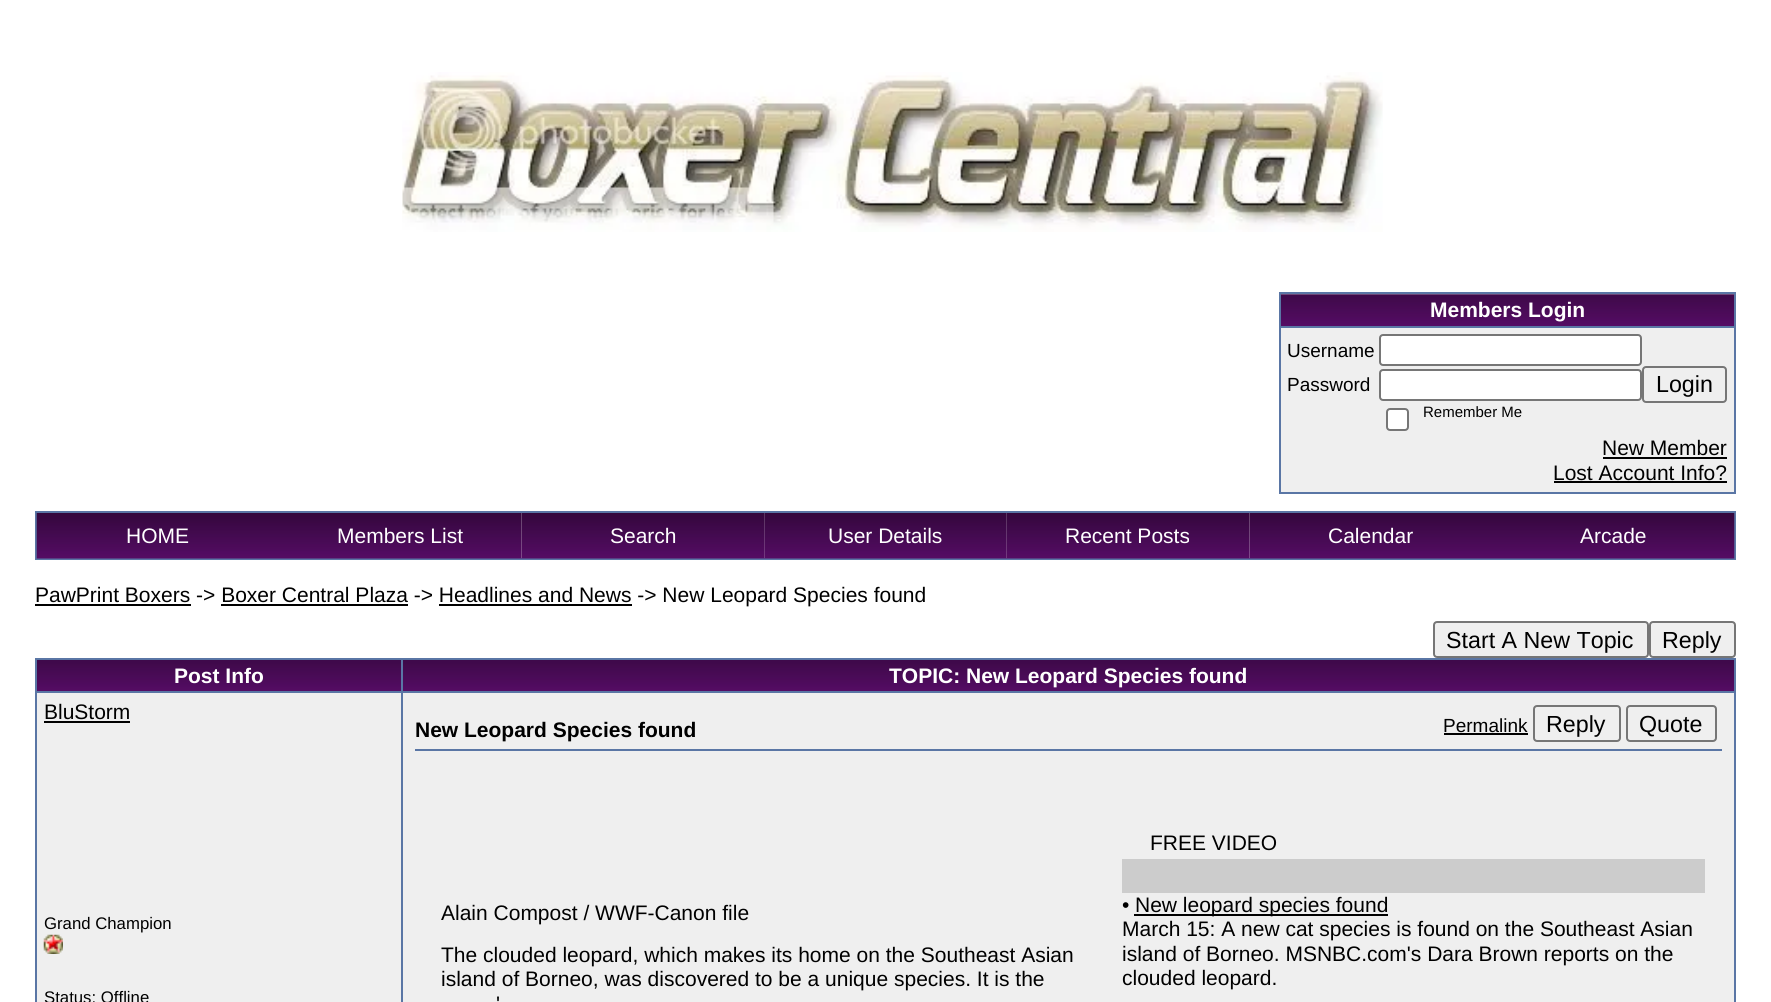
#include <cairo.h>
#include <math.h>
#include <stddef.h>

static cairo_t *ctx;

static void use_color(int r, int g, int b) {
    cairo_set_source_rgb(ctx, r / 255.0, g / 255.0, b / 255.0);
}

static void round_rect(double x, double y, double w, double h, double r) {
    cairo_new_sub_path(ctx);
    cairo_arc(ctx, x + w - r, y + h - r, r, 0, M_PI / 2);
    cairo_arc(ctx, x + r, y + h - r, r, M_PI / 2, M_PI);
    cairo_arc(ctx, x + r, y + r, r, M_PI, 1.5 * M_PI);
    cairo_arc(ctx, x + w - r, y + r, r, 1.5 * M_PI, 2 * M_PI);
    cairo_close_path(ctx);
}

static void picture(const char *path, double x, double y, double w, double h) {
    cairo_surface_t *image = cairo_image_surface_create_from_png(path);
    cairo_save(ctx);
    cairo_set_source_surface(ctx, image, x, y);
    cairo_rectangle(ctx, x, y, w, h);
    cairo_fill(ctx);
    cairo_restore(ctx);
    cairo_surface_destroy(image);
}

int main(void) {
    cairo_surface_t *surface = cairo_image_surface_create(CAIRO_FORMAT_RGB24, 1771, 1002);
    ctx = cairo_create(surface);
    cairo_font_options_t *options = cairo_font_options_create();
    cairo_font_options_set_hint_metrics(options, CAIRO_HINT_METRICS_OFF);
    cairo_font_options_set_hint_style(options, CAIRO_HINT_STYLE_NONE);
    cairo_set_font_options(ctx, options);
    cairo_set_miter_limit(ctx, 4);
    use_color(255, 255, 255);
    cairo_paint(ctx);
    picture("img1.png", 402, 72, 981, 160);
    use_color(90, 118, 165);
    cairo_rectangle(ctx, 1279, 292, 457, 2);
    cairo_fill(ctx);
    cairo_rectangle(ctx, 1734, 292, 2, 202);
    cairo_fill(ctx);
    cairo_rectangle(ctx, 1279, 492, 457, 2);
    cairo_fill(ctx);
    cairo_rectangle(ctx, 1279, 292, 2, 202);
    cairo_fill(ctx);
    picture("img2.png", 1281, 294, 453, 32);
    cairo_rectangle(ctx, 1279, 326, 457, 2);
    cairo_fill(ctx);
    cairo_select_font_face(ctx, "Liberation Sans", CAIRO_FONT_SLANT_NORMAL, CAIRO_FONT_WEIGHT_BOLD);
    cairo_set_font_size(ctx, 21);
    use_color(255, 255, 255);
    cairo_move_to(ctx, 1430, 317);
    cairo_show_text(ctx, "Members Login");
    use_color(239, 239, 239);
    cairo_rectangle(ctx, 1281, 328, 453, 164);
    cairo_fill(ctx);
    cairo_select_font_face(ctx, "Liberation Sans", CAIRO_FONT_SLANT_NORMAL, CAIRO_FONT_WEIGHT_NORMAL);
    cairo_set_font_size(ctx, 19);
    use_color(0, 0, 0);
    cairo_move_to(ctx, 1287, 357);
    cairo_show_text(ctx, "Username");
    use_color(255, 255, 255);
    round_rect(1380, 335, 261, 30, 3);
    cairo_fill_preserve(ctx);
    use_color(118, 118, 118);
    cairo_stroke(ctx);
    use_color(0, 0, 0);
    cairo_move_to(ctx, 1287, 391);
    cairo_show_text(ctx, "Password");
    use_color(255, 255, 255);
    round_rect(1380, 370, 261, 30, 3);
    cairo_fill_preserve(ctx);
    use_color(118, 118, 118);
    cairo_stroke(ctx);
    round_rect(1643, 367, 83, 35, 3);
    cairo_stroke(ctx);
    cairo_set_font_size(ctx, 23.25);
    use_color(0, 0, 0);
    cairo_move_to(ctx, 1656, 392);
    cairo_show_text(ctx, "Login");
    use_color(255, 255, 255);
    round_rect(1387, 409, 21, 21, 3);
    cairo_fill_preserve(ctx);
    use_color(118, 118, 118);
    cairo_stroke(ctx);
    cairo_set_font_size(ctx, 15);
    use_color(0, 0, 0);
    cairo_move_to(ctx, 1423, 417);
    cairo_show_text(ctx, "Remember Me");
    cairo_set_font_size(ctx, 21);
    cairo_move_to(ctx, 1602, 455);
    cairo_show_text(ctx, "New Member");
    cairo_rectangle(ctx, 1603, 457, 124, 2);
    cairo_fill(ctx);
    cairo_move_to(ctx, 1553, 480);
    cairo_show_text(ctx, "Lost Account Info?");
    cairo_rectangle(ctx, 1554, 481, 173, 2);
    cairo_fill(ctx);
    cairo_rectangle(ctx, 36, 512, 1699, 47);
    use_color(90, 118, 165);
    cairo_stroke(ctx);
    picture("img3.png", 36, 513, 244, 46);
    use_color(255, 255, 255);
    cairo_move_to(ctx, 126, 543);
    cairo_show_text(ctx, "HOME");
    picture("img4.png", 280, 513, 242, 46);
    cairo_move_to(ctx, 337, 543);
    cairo_show_text(ctx, "Members List");
    picture("img5.png", 521, 513, 244, 46);
    cairo_move_to(ctx, 610, 543);
    cairo_show_text(ctx, "Search");
    picture("img6.png", 764, 513, 243, 46);
    cairo_move_to(ctx, 828, 543);
    cairo_show_text(ctx, "User Details");
    picture("img7.png", 1006, 513, 244, 46);
    cairo_move_to(ctx, 1065, 543);
    cairo_show_text(ctx, "Recent Posts");
    picture("img8.png", 1249, 513, 242, 46);
    cairo_move_to(ctx, 1328, 543);
    cairo_show_text(ctx, "Calendar");
    picture("img9.png", 1491, 513, 244, 46);
    cairo_move_to(ctx, 1580, 543);
    cairo_show_text(ctx, "Arcade");
    use_color(0, 0, 0);
    cairo_rectangle(ctx, 35, 604, 156, 2);
    cairo_fill(ctx);
    cairo_move_to(ctx, 35, 602);
    cairo_show_text(ctx, "PawPrint Boxers -> Boxer Central Plaza -> Headlines and News -> New Leopard Species found");
    cairo_rectangle(ctx, 221, 604, 187, 2);
    cairo_fill(ctx);
    cairo_rectangle(ctx, 439, 604, 193, 2);
    cairo_fill(ctx);
    use_color(239, 239, 239);
    round_rect(1434, 622, 214, 35, 3);
    cairo_fill_preserve(ctx);
    use_color(118, 118, 118);
    cairo_stroke(ctx);
    cairo_set_font_size(ctx, 23.25);
    use_color(0, 0, 0);
    cairo_move_to(ctx, 1446, 648);
    cairo_show_text(ctx, "Start A New Topic");
    use_color(239, 239, 239);
    round_rect(1650, 622, 85, 35, 3);
    cairo_fill_preserve(ctx);
    use_color(118, 118, 118);
    cairo_stroke(ctx);
    use_color(0, 0, 0);
    cairo_move_to(ctx, 1662, 648);
    cairo_show_text(ctx, "Reply");
    use_color(90, 118, 165);
    cairo_rectangle(ctx, 35, 658, 1701, 2);
    cairo_fill(ctx);
    cairo_rectangle(ctx, 1734, 658, 2, 344);
    cairo_fill(ctx);
    cairo_rectangle(ctx, 35, 658, 2, 344);
    cairo_fill(ctx);
    picture("img10.png", 37, 660, 364, 31);
    cairo_rectangle(ctx, 401, 691, 1335, 2);
    cairo_fill(ctx);
    cairo_rectangle(ctx, 401, 691, 2, 311);
    cairo_fill(ctx);
    cairo_rectangle(ctx, 35, 691, 368, 2);
    cairo_fill(ctx);
    cairo_rectangle(ctx, 401, 658, 2, 35);
    cairo_fill(ctx);
    cairo_select_font_face(ctx, "Liberation Sans", CAIRO_FONT_SLANT_NORMAL, CAIRO_FONT_WEIGHT_BOLD);
    cairo_set_font_size(ctx, 21);
    use_color(255, 255, 255);
    cairo_move_to(ctx, 174, 683);
    cairo_show_text(ctx, "Post Info");
    picture("img11.png", 403, 660, 1331, 31);
    cairo_move_to(ctx, 889, 683);
    cairo_show_text(ctx, "TOPIC: New Leopard Species found");
    use_color(239, 239, 239);
    cairo_rectangle(ctx, 37, 693, 364, 309);
    cairo_fill(ctx);
    cairo_select_font_face(ctx, "Liberation Sans", CAIRO_FONT_SLANT_NORMAL, CAIRO_FONT_WEIGHT_NORMAL);
    use_color(0, 0, 0);
    cairo_move_to(ctx, 44, 719);
    cairo_show_text(ctx, "BluStorm");
    cairo_rectangle(ctx, 44, 721, 86, 2);
    cairo_fill(ctx);
    cairo_set_font_size(ctx, 16.75);
    cairo_move_to(ctx, 44, 929);
    cairo_show_text(ctx, "Grand Champion");
    picture("img12.png", 43, 934, 20, 20);
    cairo_move_to(ctx, 44, 1003);
    cairo_show_text(ctx, "Status: Offline");
    use_color(239, 239, 239);
    cairo_rectangle(ctx, 403, 693, 1331, 309);
    cairo_fill(ctx);
    cairo_select_font_face(ctx, "Liberation Sans", CAIRO_FONT_SLANT_NORMAL, CAIRO_FONT_WEIGHT_BOLD);
    cairo_set_font_size(ctx, 21);
    use_color(0, 0, 0);
    cairo_move_to(ctx, 415, 737);
    cairo_show_text(ctx, "New Leopard Species found");
    cairo_select_font_face(ctx, "Liberation Sans", CAIRO_FONT_SLANT_NORMAL, CAIRO_FONT_WEIGHT_NORMAL);
    cairo_set_font_size(ctx, 19);
    cairo_move_to(ctx, 1443, 732);
    cairo_show_text(ctx, "Permalink");
    cairo_rectangle(ctx, 1444, 733, 84, 2);
    cairo_fill(ctx);
    round_rect(1534, 706, 86, 35, 3);
    use_color(118, 118, 118);
    cairo_stroke(ctx);
    cairo_set_font_size(ctx, 23.25);
    use_color(0, 0, 0);
    cairo_move_to(ctx, 1546, 732);
    cairo_show_text(ctx, "Reply");
    round_rect(1627, 706, 89, 35, 3);
    use_color(118, 118, 118);
    cairo_stroke(ctx);
    use_color(0, 0, 0);
    cairo_move_to(ctx, 1639, 732);
    cairo_show_text(ctx, "Quote");
    use_color(90, 118, 165);
    cairo_rectangle(ctx, 415, 749, 1307, 2);
    cairo_fill(ctx);
    cairo_set_font_size(ctx, 21);
    use_color(0, 0, 0);
    cairo_move_to(ctx, 441, 920);
    cairo_show_text(ctx, "Alain Compost / WWF-Canon file");
    cairo_move_to(ctx, 441, 962);
    cairo_show_text(ctx, "The clouded leopard, which makes its home on the Southeast Asian");
    cairo_move_to(ctx, 441, 986);
    cairo_show_text(ctx, "island of Borneo, was discovered to be a unique species. It is the");
    cairo_move_to(ctx, 496, 1011);
    cairo_show_text(ctx, "'");
    cairo_move_to(ctx, 1150, 850);
    cairo_show_text(ctx, "FREE VIDEO");
    use_color(204, 204, 204);
    cairo_rectangle(ctx, 1122, 859, 583, 34);
    cairo_fill(ctx);
    use_color(0, 0, 0);
    cairo_move_to(ctx, 1122, 912);
    cairo_show_text(ctx, "•");
    cairo_rectangle(ctx, 1134, 914, 254, 2);
    cairo_fill(ctx);
    cairo_move_to(ctx, 1135, 912);
    cairo_show_text(ctx, "New leopard species found");
    cairo_move_to(ctx, 1122, 936);
    cairo_show_text(ctx, "March 15: A new cat species is found on the Southeast Asian");
    cairo_move_to(ctx, 1122, 961);
    cairo_show_text(ctx, "island of Borneo. MSNBC.com's Dara Brown reports on the");
    cairo_move_to(ctx, 1122, 985);
    cairo_show_text(ctx, "clouded leopard.");
    cairo_surface_write_to_png(surface, "result.png");
    cairo_font_options_destroy(options);
    cairo_destroy(ctx);
    cairo_surface_destroy(surface);
    return 0;
}
